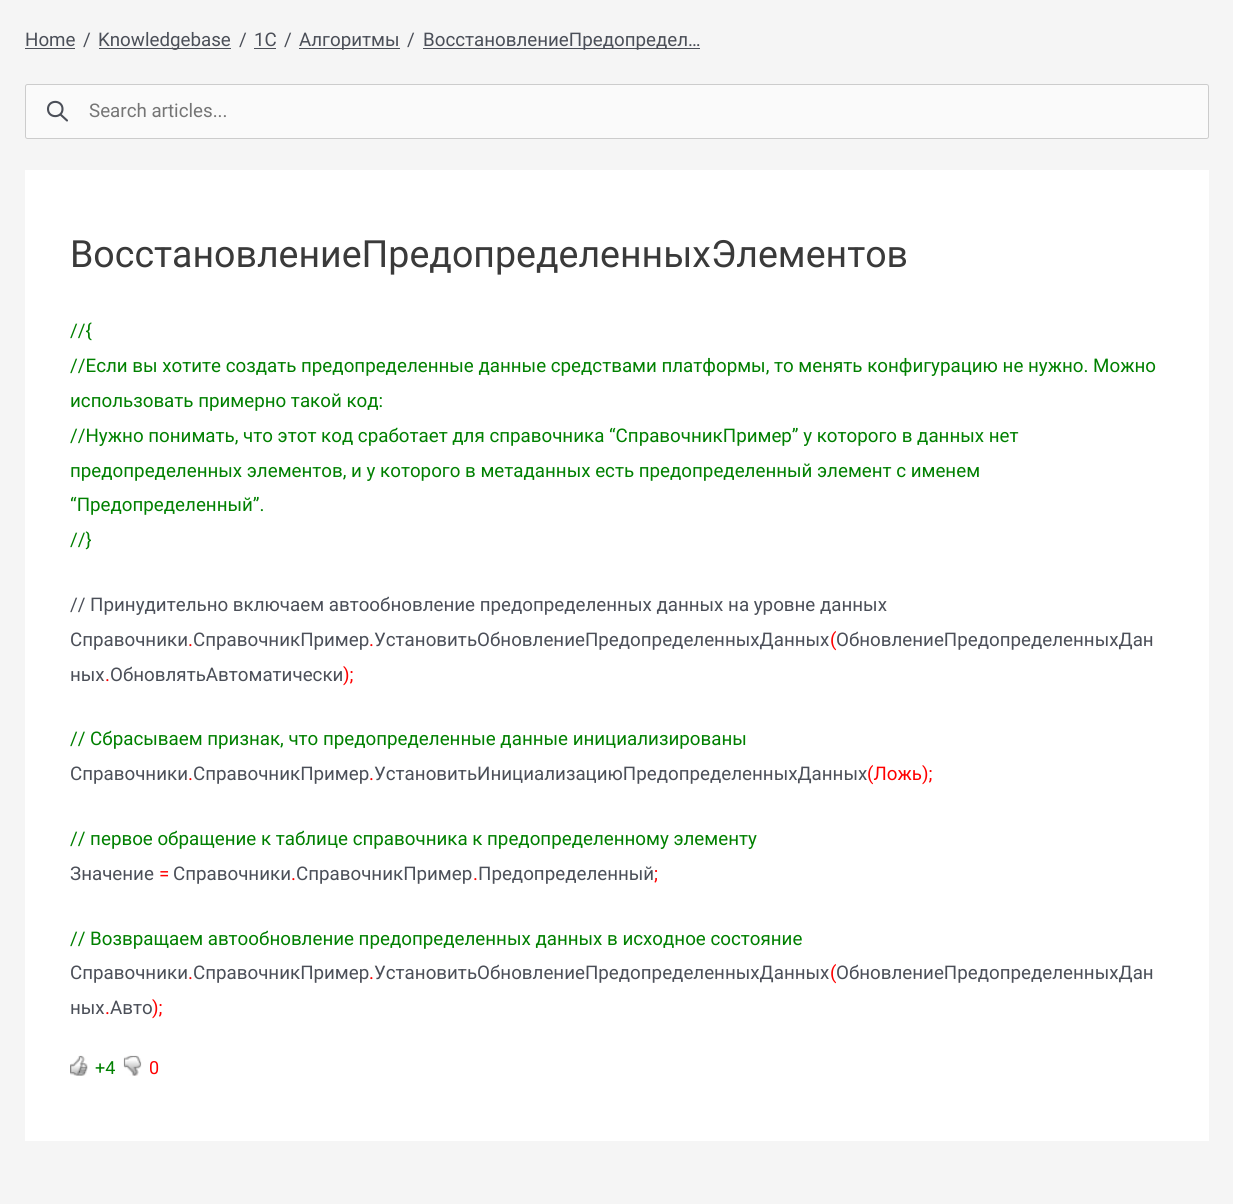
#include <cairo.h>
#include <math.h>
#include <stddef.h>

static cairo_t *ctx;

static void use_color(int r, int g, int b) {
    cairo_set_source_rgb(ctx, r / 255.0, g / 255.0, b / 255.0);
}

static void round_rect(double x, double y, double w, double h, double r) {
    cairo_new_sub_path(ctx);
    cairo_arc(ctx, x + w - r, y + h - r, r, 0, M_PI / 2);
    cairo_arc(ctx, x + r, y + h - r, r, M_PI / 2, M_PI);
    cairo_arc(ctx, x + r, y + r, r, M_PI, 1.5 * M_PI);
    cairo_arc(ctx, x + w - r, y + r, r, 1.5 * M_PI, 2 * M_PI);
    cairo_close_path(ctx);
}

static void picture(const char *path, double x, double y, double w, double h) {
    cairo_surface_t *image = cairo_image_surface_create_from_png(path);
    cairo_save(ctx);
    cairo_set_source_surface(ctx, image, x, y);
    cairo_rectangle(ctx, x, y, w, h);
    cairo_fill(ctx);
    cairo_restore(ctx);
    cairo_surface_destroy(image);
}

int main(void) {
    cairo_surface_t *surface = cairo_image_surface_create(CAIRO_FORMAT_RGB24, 1233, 1204);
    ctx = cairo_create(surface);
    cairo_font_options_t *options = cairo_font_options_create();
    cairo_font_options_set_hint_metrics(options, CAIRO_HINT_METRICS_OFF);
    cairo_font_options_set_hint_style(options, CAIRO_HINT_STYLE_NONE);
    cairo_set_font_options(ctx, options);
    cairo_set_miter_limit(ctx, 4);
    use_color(245, 245, 245);
    cairo_paint(ctx);
    cairo_select_font_face(ctx, "Roboto", CAIRO_FONT_SLANT_NORMAL, CAIRO_FONT_WEIGHT_NORMAL);
    cairo_set_font_size(ctx, 18.75);
    use_color(75, 79, 88);
    cairo_move_to(ctx, 25, 46);
    cairo_show_text(ctx, "Home");
    cairo_rectangle(ctx, 25, 48, 50, 1);
    cairo_fill(ctx);
    cairo_move_to(ctx, 83, 46);
    cairo_show_text(ctx, "/");
    cairo_rectangle(ctx, 99, 48, 132, 1);
    cairo_fill(ctx);
    cairo_move_to(ctx, 98, 46);
    cairo_show_text(ctx, "Knowledgebase");
    cairo_move_to(ctx, 239, 46);
    cairo_show_text(ctx, "/");
    cairo_move_to(ctx, 254, 46);
    cairo_show_text(ctx, "1С");
    cairo_rectangle(ctx, 254, 48, 22, 1);
    cairo_fill(ctx);
    cairo_move_to(ctx, 284, 46);
    cairo_show_text(ctx, "/");
    cairo_rectangle(ctx, 299, 48, 101, 1);
    cairo_fill(ctx);
    cairo_move_to(ctx, 299, 46);
    cairo_show_text(ctx, "Алгоритмы");
    cairo_move_to(ctx, 407, 46);
    cairo_show_text(ctx, "/");
    cairo_rectangle(ctx, 423, 48, 277, 1);
    cairo_fill(ctx);
    cairo_move_to(ctx, 423, 46);
    cairo_show_text(ctx, "ВосстановлениеПредопредел…");
    use_color(250, 250, 250);
    round_rect(25.5, 84.5, 1183, 54, 2);
    cairo_fill_preserve(ctx);
    use_color(204, 204, 204);
    cairo_set_line_width(ctx, 1);
    cairo_stroke(ctx);
    cairo_new_path(ctx);
    cairo_move_to(ctx, 67, 120.5);
    cairo_line_to(ctx, 60.5, 114.5);
    cairo_move_to(ctx, 62.5, 109);
    cairo_curve_to(ctx, 62.5, 118.5, 48, 118.5, 48, 109);
    cairo_curve_to(ctx, 48, 99.5, 62.5, 99.5, 62.5, 109);
    cairo_close_path(ctx);
    use_color(75, 79, 88);
    cairo_set_line_width(ctx, 2.1);
    cairo_set_line_cap(ctx, CAIRO_LINE_CAP_ROUND);
    cairo_set_line_join(ctx, CAIRO_LINE_JOIN_ROUND);
    cairo_stroke(ctx);
    use_color(117, 117, 117);
    cairo_move_to(ctx, 89, 117);
    cairo_show_text(ctx, "Search articles...");
    use_color(255, 255, 255);
    cairo_rectangle(ctx, 25, 170, 1184, 971);
    cairo_fill(ctx);
    cairo_set_font_size(ctx, 37.5);
    use_color(58, 58, 58);
    cairo_move_to(ctx, 70, 267);
    cairo_show_text(ctx, "ВосстановлениеПредопределенныхЭлементов");
    cairo_set_font_size(ctx, 18.75);
    use_color(0, 128, 0);
    cairo_move_to(ctx, 70, 337);
    cairo_show_text(ctx, "//{");
    cairo_move_to(ctx, 70, 372);
    cairo_show_text(ctx, "//Если вы хотите создать предопределенные данные средствами платформы, то менять конфигурацию не нужно. Можно");
    cairo_move_to(ctx, 70, 407);
    cairo_show_text(ctx, "использовать примерно такой код:");
    cairo_move_to(ctx, 70, 442);
    cairo_show_text(ctx, "//Нужно понимать, что этот код сработает для справочника “СправочникПример” у которого в данных нет");
    cairo_move_to(ctx, 70, 477);
    cairo_show_text(ctx, "предопределенных элементов, и у которого в метаданных есть предопределенный элемент с именем");
    cairo_move_to(ctx, 70, 511);
    cairo_show_text(ctx, "“Предопределенный”.");
    cairo_move_to(ctx, 70, 546);
    cairo_show_text(ctx, "//}");
    use_color(75, 79, 88);
    cairo_move_to(ctx, 70, 611);
    cairo_show_text(ctx, "// Принудительно включаем автообновление предопределенных данных на уровне данных");
    cairo_move_to(ctx, 70, 646);
    cairo_show_text(ctx, "Справочники");
    use_color(255, 0, 0);
    cairo_move_to(ctx, 188, 646);
    cairo_show_text(ctx, ".");
    use_color(75, 79, 88);
    cairo_move_to(ctx, 193, 646);
    cairo_show_text(ctx, "СправочникПример");
    use_color(255, 0, 0);
    cairo_move_to(ctx, 369, 646);
    cairo_show_text(ctx, ".");
    use_color(75, 79, 88);
    cairo_move_to(ctx, 374, 646);
    cairo_show_text(ctx, "УстановитьОбновлениеПредопределенныхДанных");
    use_color(255, 0, 0);
    cairo_move_to(ctx, 830, 646);
    cairo_show_text(ctx, "(");
    use_color(75, 79, 88);
    cairo_move_to(ctx, 836, 646);
    cairo_show_text(ctx, "ОбновлениеПредопределенныхДан");
    cairo_move_to(ctx, 70, 681);
    cairo_show_text(ctx, "ных");
    use_color(255, 0, 0);
    cairo_move_to(ctx, 105, 681);
    cairo_show_text(ctx, ".");
    use_color(75, 79, 88);
    cairo_move_to(ctx, 110, 681);
    cairo_show_text(ctx, "ОбновлятьАвтоматически");
    use_color(255, 0, 0);
    cairo_move_to(ctx, 343, 681);
    cairo_show_text(ctx, ");");
    use_color(0, 128, 0);
    cairo_move_to(ctx, 70, 745);
    cairo_show_text(ctx, "// Сбрасываем признак, что предопределенные данные инициализированы");
    use_color(75, 79, 88);
    cairo_move_to(ctx, 70, 780);
    cairo_show_text(ctx, "Справочники");
    use_color(255, 0, 0);
    cairo_move_to(ctx, 188, 780);
    cairo_show_text(ctx, ".");
    use_color(75, 79, 88);
    cairo_move_to(ctx, 193, 780);
    cairo_show_text(ctx, "СправочникПример");
    use_color(255, 0, 0);
    cairo_move_to(ctx, 369, 780);
    cairo_show_text(ctx, ".");
    use_color(75, 79, 88);
    cairo_move_to(ctx, 374, 780);
    cairo_show_text(ctx, "УстановитьИнициализациюПредопределенныхДанных");
    use_color(255, 0, 0);
    cairo_move_to(ctx, 867, 780);
    cairo_show_text(ctx, "(Ложь);");
    use_color(0, 128, 0);
    cairo_move_to(ctx, 70, 845);
    cairo_show_text(ctx, "// первое обращение к таблице справочника к предопределенному элементу");
    use_color(75, 79, 88);
    cairo_move_to(ctx, 70, 880);
    cairo_show_text(ctx, "Значение");
    use_color(255, 0, 0);
    cairo_move_to(ctx, 159, 880);
    cairo_show_text(ctx, "=");
    use_color(75, 79, 88);
    cairo_move_to(ctx, 173, 880);
    cairo_show_text(ctx, "Справочники");
    cairo_move_to(ctx, 296, 880);
    cairo_show_text(ctx, "СправочникПример");
    cairo_move_to(ctx, 478, 880);
    cairo_show_text(ctx, "Предопределенный");
    use_color(255, 0, 0);
    cairo_move_to(ctx, 654, 880);
    cairo_show_text(ctx, ";");
    cairo_move_to(ctx, 291, 880);
    cairo_show_text(ctx, ".");
    cairo_move_to(ctx, 473, 880);
    cairo_show_text(ctx, ".");
    use_color(0, 128, 0);
    cairo_move_to(ctx, 70, 945);
    cairo_show_text(ctx, "// Возвращаем автообновление предопределенных данных в исходное состояние");
    use_color(75, 79, 88);
    cairo_move_to(ctx, 70, 979);
    cairo_show_text(ctx, "Справочники");
    use_color(255, 0, 0);
    cairo_move_to(ctx, 188, 979);
    cairo_show_text(ctx, ".");
    use_color(75, 79, 88);
    cairo_move_to(ctx, 193, 979);
    cairo_show_text(ctx, "СправочникПример");
    use_color(255, 0, 0);
    cairo_move_to(ctx, 369, 979);
    cairo_show_text(ctx, ".");
    use_color(75, 79, 88);
    cairo_move_to(ctx, 374, 979);
    cairo_show_text(ctx, "УстановитьОбновлениеПредопределенныхДанных");
    use_color(255, 0, 0);
    cairo_move_to(ctx, 830, 979);
    cairo_show_text(ctx, "(");
    use_color(75, 79, 88);
    cairo_move_to(ctx, 836, 979);
    cairo_show_text(ctx, "ОбновлениеПредопределенныхДан");
    cairo_move_to(ctx, 70, 1014);
    cairo_show_text(ctx, "ных");
    use_color(255, 0, 0);
    cairo_move_to(ctx, 105, 1014);
    cairo_show_text(ctx, ".");
    use_color(75, 79, 88);
    cairo_move_to(ctx, 110, 1014);
    cairo_show_text(ctx, "Авто");
    use_color(255, 0, 0);
    cairo_move_to(ctx, 152, 1014);
    cairo_show_text(ctx, ");");
    picture("img1.png", 70, 1055, 18, 21);
    cairo_set_font_size(ctx, 18);
    use_color(0, 128, 0);
    cairo_move_to(ctx, 95, 1074);
    cairo_show_text(ctx, "+4");
    picture("img2.png", 123, 1055, 19, 21);
    use_color(255, 0, 0);
    cairo_move_to(ctx, 149, 1074);
    cairo_show_text(ctx, "0");
    cairo_surface_write_to_png(surface, "result.png");
    cairo_font_options_destroy(options);
    cairo_destroy(ctx);
    cairo_surface_destroy(surface);
    return 0;
}
